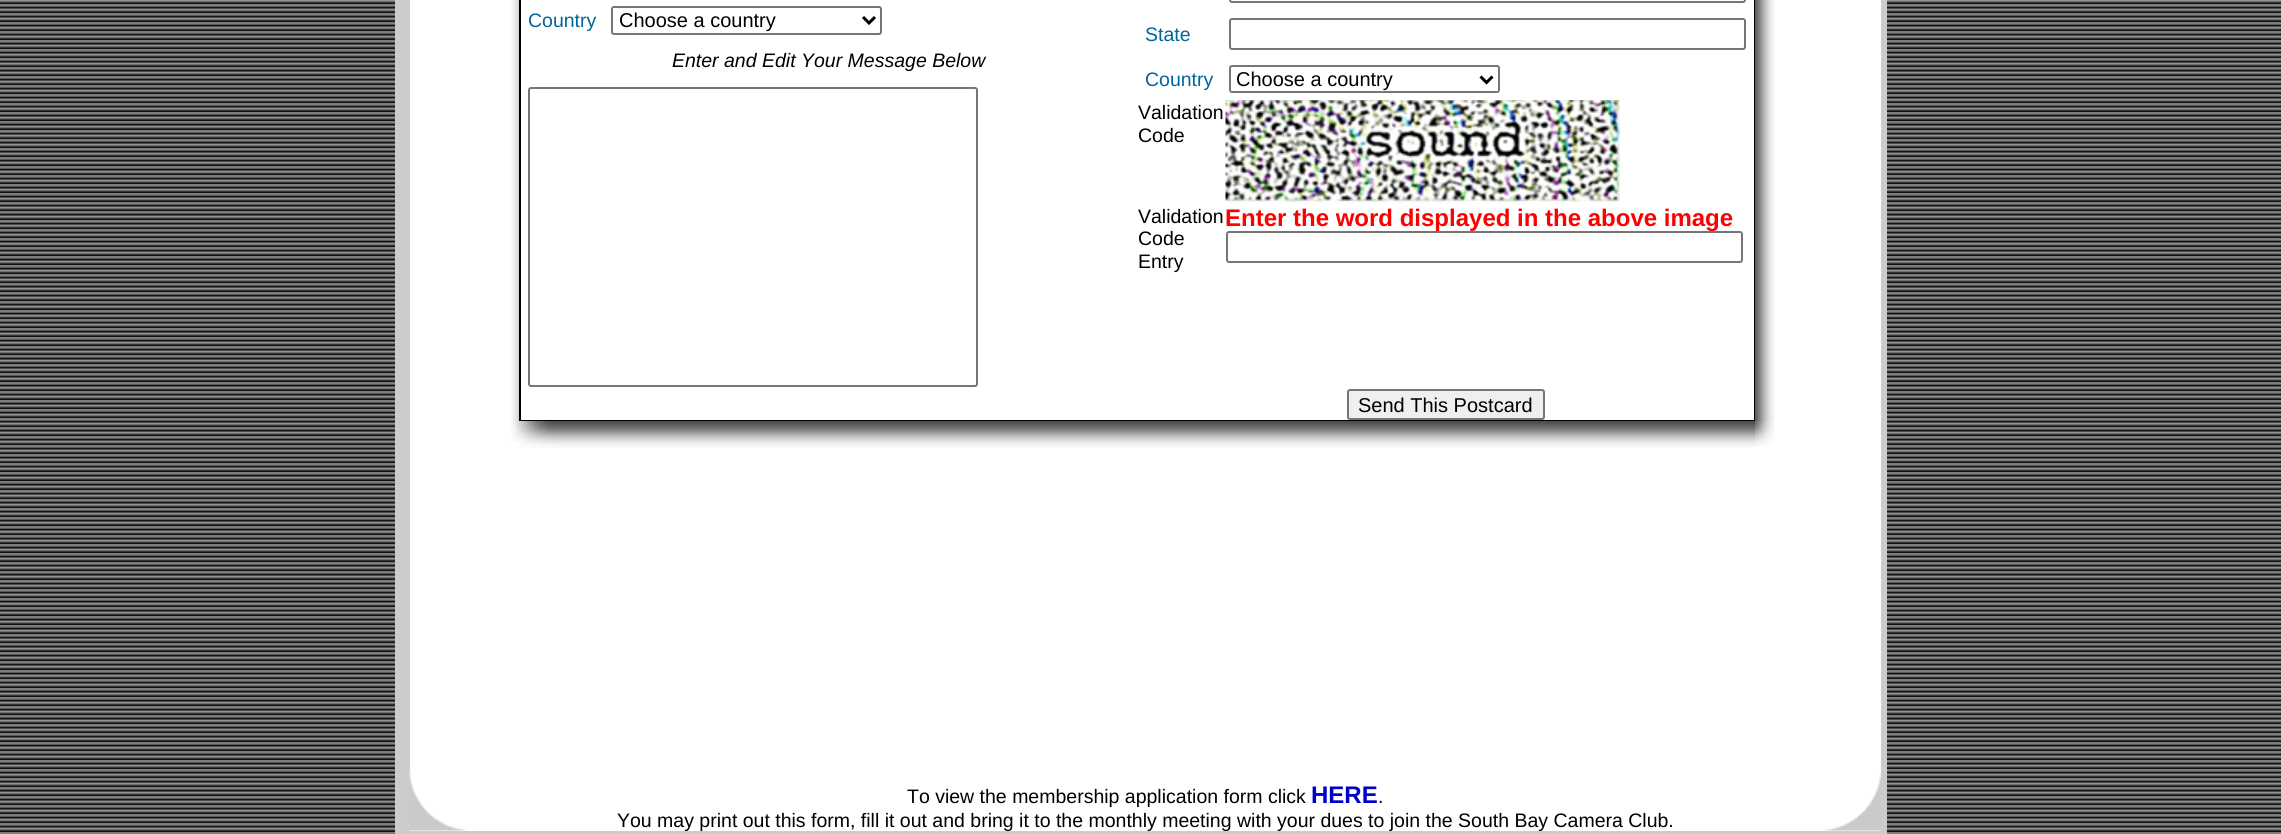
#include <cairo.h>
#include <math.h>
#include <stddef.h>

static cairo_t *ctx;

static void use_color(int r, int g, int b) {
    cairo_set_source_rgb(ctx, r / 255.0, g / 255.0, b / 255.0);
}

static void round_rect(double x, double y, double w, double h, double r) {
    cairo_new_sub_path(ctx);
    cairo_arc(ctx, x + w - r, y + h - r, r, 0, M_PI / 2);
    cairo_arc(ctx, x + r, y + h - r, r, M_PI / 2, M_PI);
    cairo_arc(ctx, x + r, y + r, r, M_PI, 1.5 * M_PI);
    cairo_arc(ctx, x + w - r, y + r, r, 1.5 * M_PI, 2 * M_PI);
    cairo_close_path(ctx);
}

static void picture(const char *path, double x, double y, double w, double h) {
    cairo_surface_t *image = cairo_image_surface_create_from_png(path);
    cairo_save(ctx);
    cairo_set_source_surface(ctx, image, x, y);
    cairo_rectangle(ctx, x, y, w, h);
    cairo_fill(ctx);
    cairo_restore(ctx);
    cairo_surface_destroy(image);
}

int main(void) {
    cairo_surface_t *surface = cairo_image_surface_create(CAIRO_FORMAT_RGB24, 2281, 834);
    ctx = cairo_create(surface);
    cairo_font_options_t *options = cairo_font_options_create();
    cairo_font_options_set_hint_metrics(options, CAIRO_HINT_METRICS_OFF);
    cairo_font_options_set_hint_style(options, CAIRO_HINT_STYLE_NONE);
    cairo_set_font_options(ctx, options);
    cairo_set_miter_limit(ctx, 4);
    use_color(255, 255, 255);
    cairo_paint(ctx);
    picture("img1.png", 0, 0, 2281, 834);
    use_color(204, 204, 204);
    cairo_rectangle(ctx, 395, 0, 1492, 834);
    cairo_fill(ctx);
    use_color(255, 255, 255);
    cairo_rectangle(ctx, 410, 0, 1471, 831);
    cairo_fill(ctx);
    picture("img2.png", 510, 0, 9, 421);
    use_color(0, 0, 0);
    cairo_rectangle(ctx, 519, 0, 1236, 421);
    cairo_fill(ctx);
    use_color(255, 255, 255);
    cairo_rectangle(ctx, 521, 0, 1233, 420);
    cairo_fill(ctx);
    cairo_select_font_face(ctx, "Liberation Sans", CAIRO_FONT_SLANT_NORMAL, CAIRO_FONT_WEIGHT_NORMAL);
    cairo_set_font_size(ctx, 19.5);
    use_color(0, 102, 153);
    cairo_move_to(ctx, 528, 27);
    cairo_show_text(ctx, "Country");
    round_rect(612, 7, 269, 27, 2);
    use_color(118, 118, 118);
    cairo_stroke(ctx);
    cairo_new_path(ctx);
    cairo_move_to(ctx, 863, 17);
    cairo_line_to(ctx, 869, 23);
    cairo_line_to(ctx, 875, 17);
    use_color(0, 0, 0);
    cairo_set_line_width(ctx, 3);
    cairo_stroke(ctx);
    cairo_set_font_size(ctx, 20);
    cairo_move_to(ctx, 619, 27);
    cairo_show_text(ctx, "Choose a country");
    cairo_select_font_face(ctx, "Liberation Sans", CAIRO_FONT_SLANT_ITALIC, CAIRO_FONT_WEIGHT_NORMAL);
    cairo_set_font_size(ctx, 19.5);
    cairo_move_to(ctx, 672, 67);
    cairo_show_text(ctx, "Enter and Edit Your Message Below");
    round_rect(529, 88, 448, 298, 2);
    use_color(118, 118, 118);
    cairo_set_line_width(ctx, 2);
    cairo_stroke(ctx);
    round_rect(1230, -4, 515, 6, 2);
    cairo_stroke(ctx);
    cairo_select_font_face(ctx, "Liberation Sans", CAIRO_FONT_SLANT_NORMAL, CAIRO_FONT_WEIGHT_NORMAL);
    use_color(0, 102, 153);
    cairo_move_to(ctx, 1145, 41);
    cairo_show_text(ctx, "State");
    round_rect(1230, 19, 515, 30, 2);
    use_color(118, 118, 118);
    cairo_stroke(ctx);
    use_color(0, 102, 153);
    cairo_move_to(ctx, 1145, 86);
    cairo_show_text(ctx, "Country");
    round_rect(1230, 66, 269, 26, 2);
    use_color(118, 118, 118);
    cairo_stroke(ctx);
    cairo_new_path(ctx);
    cairo_move_to(ctx, 1480.5, 76.5);
    cairo_line_to(ctx, 1486.5, 82.5);
    cairo_line_to(ctx, 1492.5, 76.5);
    use_color(0, 0, 0);
    cairo_set_line_width(ctx, 3);
    cairo_stroke(ctx);
    cairo_set_font_size(ctx, 20);
    cairo_move_to(ctx, 1236, 86);
    cairo_show_text(ctx, "Choose a country");
    cairo_set_font_size(ctx, 19.5);
    cairo_move_to(ctx, 1138, 119);
    cairo_show_text(ctx, "Validation");
    cairo_move_to(ctx, 1138, 142);
    cairo_show_text(ctx, "Code");
    picture("img3.png", 1225, 100, 395, 104);
    cairo_move_to(ctx, 1138, 223);
    cairo_show_text(ctx, "Validation");
    cairo_move_to(ctx, 1138, 245);
    cairo_show_text(ctx, "Code");
    cairo_move_to(ctx, 1138, 268);
    cairo_show_text(ctx, "Entry");
    cairo_select_font_face(ctx, "Liberation Sans", CAIRO_FONT_SLANT_NORMAL, CAIRO_FONT_WEIGHT_BOLD);
    cairo_set_font_size(ctx, 24);
    use_color(255, 0, 0);
    cairo_move_to(ctx, 1225, 226);
    cairo_show_text(ctx, "Enter the word displayed in the above image");
    use_color(255, 255, 255);
    round_rect(1227, 232, 515, 30, 2);
    cairo_fill_preserve(ctx);
    use_color(118, 118, 118);
    cairo_set_line_width(ctx, 2);
    cairo_stroke(ctx);
    use_color(239, 239, 239);
    round_rect(1348, 390, 196, 29, 2);
    cairo_fill_preserve(ctx);
    use_color(118, 118, 118);
    cairo_stroke(ctx);
    cairo_select_font_face(ctx, "Liberation Sans", CAIRO_FONT_SLANT_NORMAL, CAIRO_FONT_WEIGHT_NORMAL);
    cairo_set_font_size(ctx, 20);
    use_color(0, 0, 0);
    cairo_move_to(ctx, 1358, 412);
    cairo_show_text(ctx, "Send This Postcard");
    picture("img4.png", 1755, 0, 20, 421);
    picture("img5.png", 511, 421, 8, 21);
    picture("img6.png", 519, 421, 1236, 27);
    picture("img7.png", 1755, 421, 20, 26);
    cairo_set_font_size(ctx, 19.5);
    cairo_move_to(ctx, 907, 803);
    cairo_show_text(ctx, "To view the membership application form click");
    cairo_select_font_face(ctx, "Liberation Sans", CAIRO_FONT_SLANT_NORMAL, CAIRO_FONT_WEIGHT_BOLD);
    cairo_set_font_size(ctx, 24);
    use_color(0, 0, 204);
    cairo_move_to(ctx, 1311, 803);
    cairo_show_text(ctx, "HERE");
    cairo_select_font_face(ctx, "Liberation Sans", CAIRO_FONT_SLANT_NORMAL, CAIRO_FONT_WEIGHT_NORMAL);
    cairo_set_font_size(ctx, 19.5);
    use_color(0, 0, 0);
    cairo_move_to(ctx, 1378, 803);
    cairo_show_text(ctx, ".");
    cairo_move_to(ctx, 617, 827);
    cairo_show_text(ctx, "You may print out this form, fill it out and bring it to the monthly meeting with your dues to join the South Bay Camera Club.");
    picture("img8.png", 409, 772, 58, 59);
    picture("img9.png", 1822, 773, 59, 58);
    cairo_surface_write_to_png(surface, "result.png");
    cairo_font_options_destroy(options);
    cairo_destroy(ctx);
    cairo_surface_destroy(surface);
    return 0;
}
